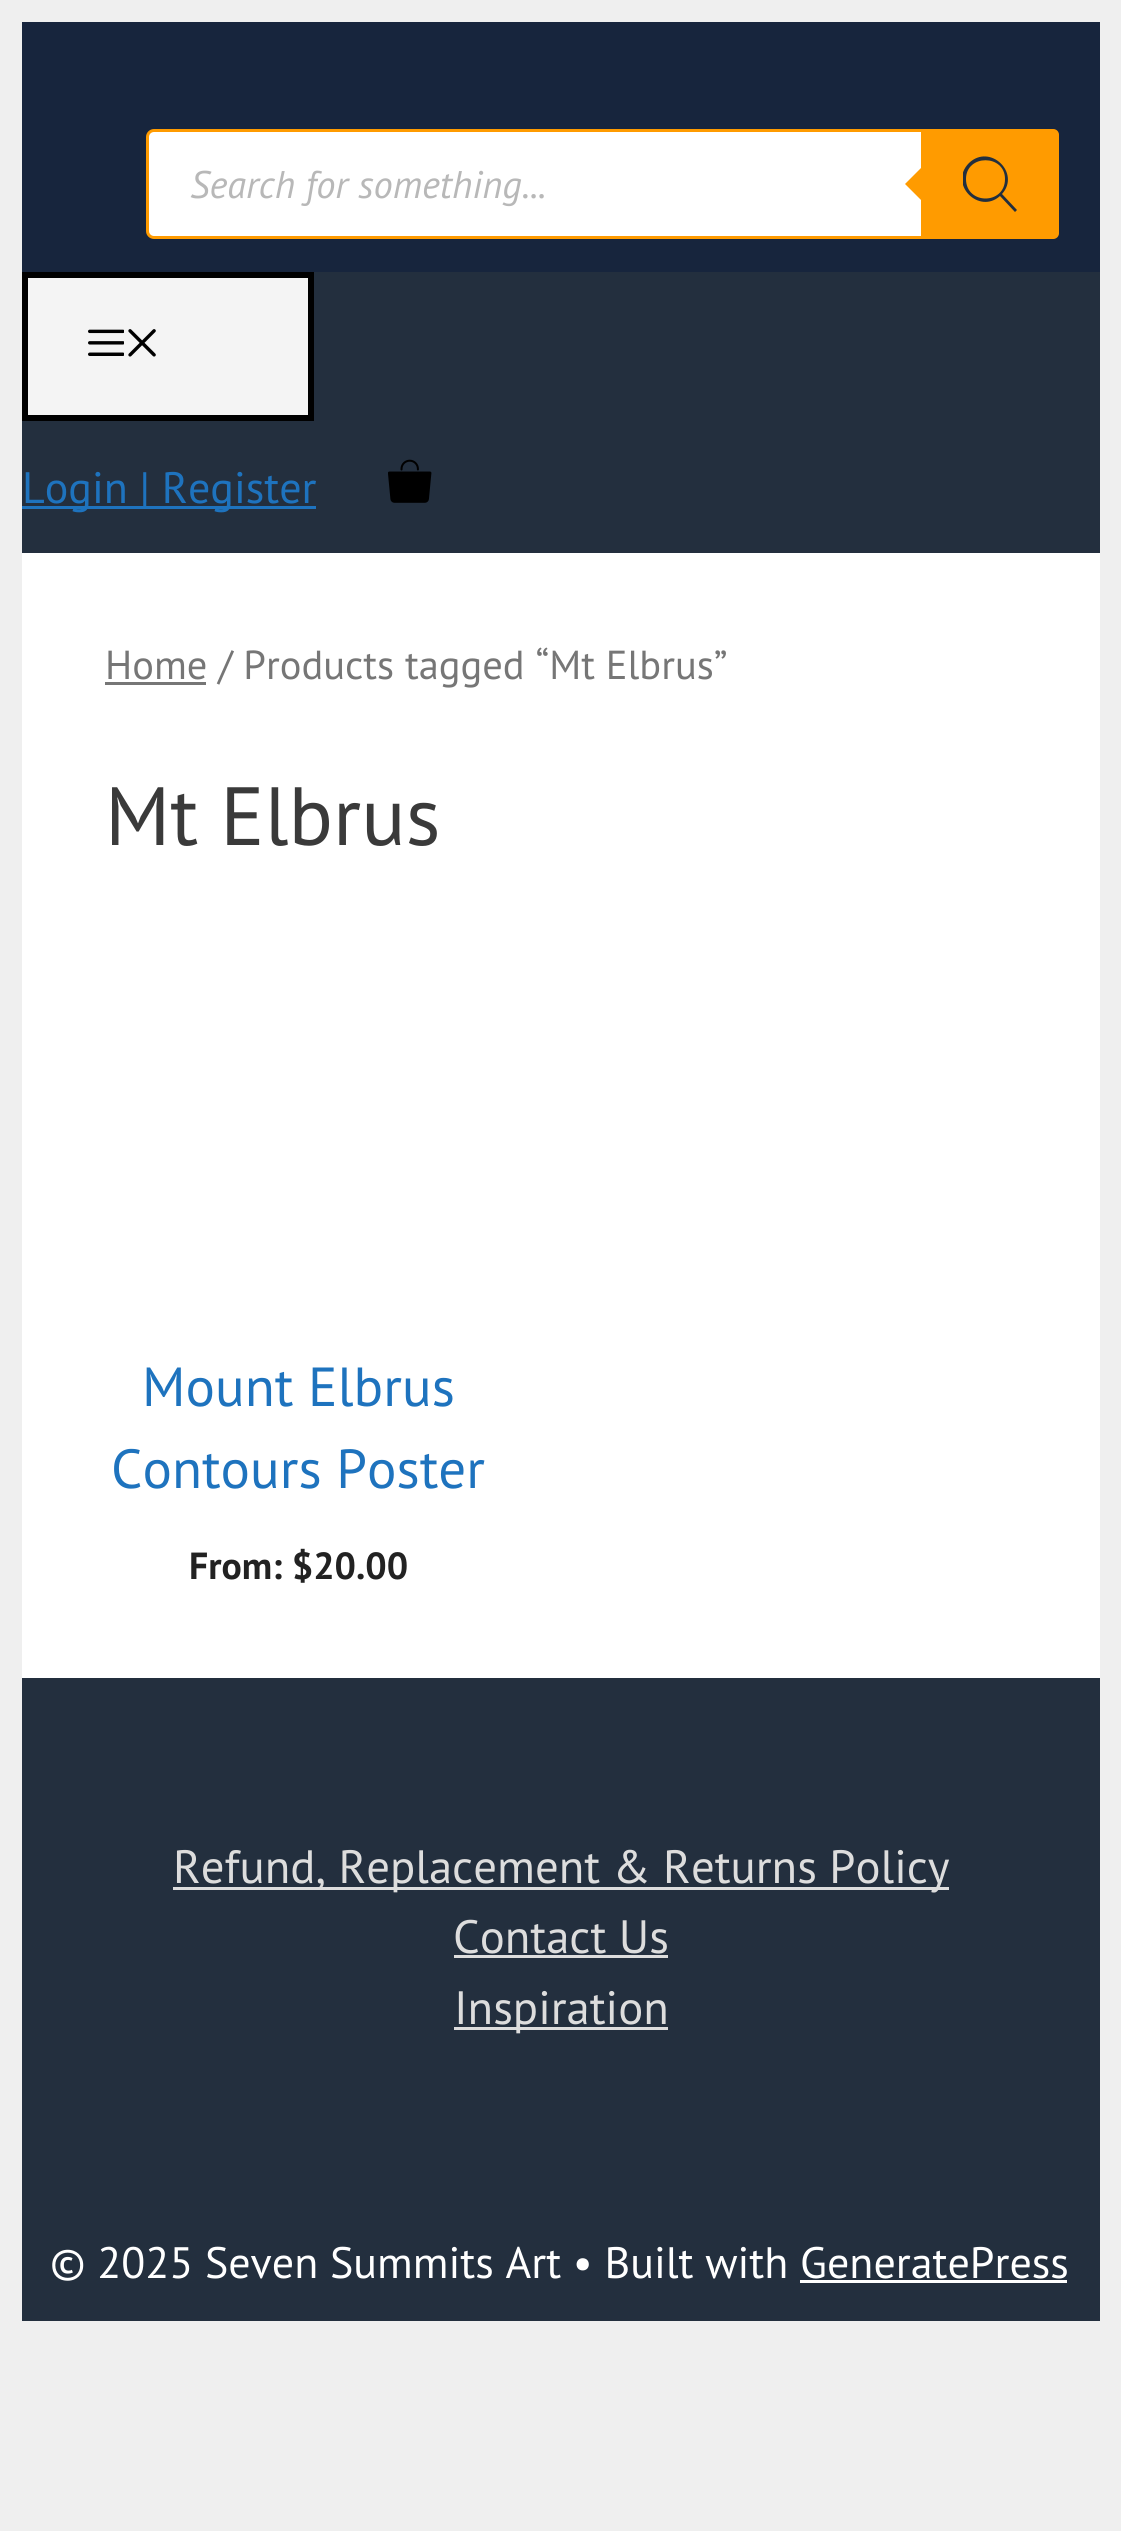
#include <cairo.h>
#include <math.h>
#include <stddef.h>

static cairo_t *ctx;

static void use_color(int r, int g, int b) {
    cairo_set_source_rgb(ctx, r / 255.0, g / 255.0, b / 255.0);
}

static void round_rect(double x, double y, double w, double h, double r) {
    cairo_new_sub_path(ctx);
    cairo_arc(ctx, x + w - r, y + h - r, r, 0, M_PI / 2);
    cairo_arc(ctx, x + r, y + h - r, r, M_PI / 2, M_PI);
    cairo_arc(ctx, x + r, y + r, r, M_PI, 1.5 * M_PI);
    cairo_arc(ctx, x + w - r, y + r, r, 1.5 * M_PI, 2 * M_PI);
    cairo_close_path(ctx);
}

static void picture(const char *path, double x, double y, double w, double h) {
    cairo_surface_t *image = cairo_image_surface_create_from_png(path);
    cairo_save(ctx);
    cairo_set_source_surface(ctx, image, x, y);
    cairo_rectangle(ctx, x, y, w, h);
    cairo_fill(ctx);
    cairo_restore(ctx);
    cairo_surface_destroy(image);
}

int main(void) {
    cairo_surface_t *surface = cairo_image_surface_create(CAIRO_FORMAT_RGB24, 1121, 2531);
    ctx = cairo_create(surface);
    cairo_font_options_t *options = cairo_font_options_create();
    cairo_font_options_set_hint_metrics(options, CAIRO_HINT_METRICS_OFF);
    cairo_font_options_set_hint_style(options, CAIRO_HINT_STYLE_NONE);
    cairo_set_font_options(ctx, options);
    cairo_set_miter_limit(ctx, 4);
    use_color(239, 239, 239);
    cairo_paint(ctx);
    use_color(23, 37, 61);
    cairo_rectangle(ctx, 22, 22, 1078, 250);
    cairo_fill(ctx);
    use_color(255, 255, 255);
    round_rect(147.5, 130.5, 910, 107, 6.5);
    cairo_fill_preserve(ctx);
    use_color(255, 155, 0);
    cairo_set_line_width(ctx, 3);
    cairo_stroke(ctx);
    cairo_select_font_face(ctx, "PT Sans", CAIRO_FONT_SLANT_ITALIC, CAIRO_FONT_WEIGHT_NORMAL);
    cairo_set_font_size(ctx, 38.5);
    use_color(184, 184, 184);
    cairo_move_to(ctx, 190, 198);
    cairo_show_text(ctx, "Search for something...");
    use_color(255, 155, 0);
    cairo_new_path(ctx);
    cairo_move_to(ctx, 921, 129);
    cairo_line_to(ctx, 1053, 129);
    cairo_curve_to(ctx, 1056.5, 129, 1059, 131.5, 1059, 135);
    cairo_line_to(ctx, 1059, 233);
    cairo_curve_to(ctx, 1059, 236.5, 1056.5, 239, 1053, 239);
    cairo_line_to(ctx, 921, 239);
    cairo_close_path(ctx);
    cairo_fill(ctx);
    cairo_new_path(ctx);
    cairo_move_to(ctx, 927, 162);
    cairo_line_to(ctx, 927, 206);
    cairo_line_to(ctx, 905, 184);
    cairo_close_path(ctx);
    cairo_fill(ctx);
    cairo_save(ctx);
    cairo_rectangle(ctx, 963, 129, 55, 110);
    cairo_clip(ctx);
    use_color(35, 47, 62);
    cairo_new_path(ctx);
    cairo_move_to(ctx, 1017, 210);
    cairo_line_to(ctx, 1002, 194);
    cairo_curve_to(ctx, 1021, 173, 990, 143, 969, 163);
    cairo_curve_to(ctx, 948, 184, 979, 215, 1000, 196);
    cairo_line_to(ctx, 1015, 212);
    cairo_close_path(ctx);
    cairo_move_to(ctx, 966, 179);
    cairo_curve_to(ctx, 966, 154, 1005, 154, 1005, 179);
    cairo_curve_to(ctx, 1005, 205, 966, 205, 966, 179);
    cairo_close_path(ctx);
    cairo_fill(ctx);
    cairo_restore(ctx);
    use_color(35, 47, 62);
    cairo_rectangle(ctx, 22, 272, 1078, 281);
    cairo_fill(ctx);
    use_color(244, 244, 244);
    cairo_rectangle(ctx, 25, 275, 286, 143);
    cairo_fill_preserve(ctx);
    use_color(0, 0, 0);
    cairo_set_line_width(ctx, 6);
    cairo_stroke(ctx);
    picture("img1.png", 88, 329, 36, 27);
    picture("img2.png", 128, 329, 28, 28);
    use_color(30, 115, 190);
    cairo_rectangle(ctx, 22, 506, 294, 3);
    cairo_fill(ctx);
    cairo_select_font_face(ctx, "PT Sans", CAIRO_FONT_SLANT_NORMAL, CAIRO_FONT_WEIGHT_NORMAL);
    cairo_set_font_size(ctx, 44);
    cairo_move_to(ctx, 22, 503);
    cairo_show_text(ctx, "Login | Register");
    picture("img3.png", 388, 459, 44, 44);
    use_color(255, 255, 255);
    cairo_rectangle(ctx, 22, 553, 1078, 1125);
    cairo_fill(ctx);
    use_color(118, 118, 118);
    cairo_rectangle(ctx, 105, 682, 101, 3);
    cairo_fill(ctx);
    cairo_set_font_size(ctx, 40.5);
    cairo_move_to(ctx, 105, 679);
    cairo_show_text(ctx, "Home / Products tagged “Mt Elbrus”");
    cairo_set_font_size(ctx, 82.5);
    use_color(58, 58, 58);
    cairo_move_to(ctx, 105, 845);
    cairo_show_text(ctx, "Mt Elbrus");
    cairo_set_font_size(ctx, 55);
    use_color(30, 115, 190);
    cairo_move_to(ctx, 142, 1406);
    cairo_show_text(ctx, "Mount Elbrus");
    cairo_move_to(ctx, 111, 1488);
    cairo_show_text(ctx, "Contours Poster");
    cairo_select_font_face(ctx, "PT Sans", CAIRO_FONT_SLANT_NORMAL, CAIRO_FONT_WEIGHT_BOLD);
    cairo_set_font_size(ctx, 37.75);
    use_color(34, 34, 34);
    cairo_move_to(ctx, 189, 1579);
    cairo_show_text(ctx, "From: $20.00");
    use_color(35, 47, 62);
    cairo_rectangle(ctx, 22, 1678, 1078, 643);
    cairo_fill(ctx);
    use_color(221, 221, 221);
    cairo_rectangle(ctx, 173, 1887, 776, 3);
    cairo_fill(ctx);
    cairo_select_font_face(ctx, "PT Sans", CAIRO_FONT_SLANT_NORMAL, CAIRO_FONT_WEIGHT_NORMAL);
    cairo_set_font_size(ctx, 46.75);
    cairo_move_to(ctx, 173, 1883);
    cairo_show_text(ctx, "Refund, Replacement & Returns Policy");
    cairo_move_to(ctx, 453, 1953);
    cairo_show_text(ctx, "Contact Us");
    cairo_rectangle(ctx, 454, 1955, 214, 3);
    cairo_fill(ctx);
    cairo_rectangle(ctx, 454, 2027, 214, 3);
    cairo_fill(ctx);
    cairo_move_to(ctx, 454, 2024);
    cairo_show_text(ctx, "Inspiration");
    cairo_set_font_size(ctx, 44);
    use_color(255, 255, 255);
    cairo_move_to(ctx, 50, 2278);
    cairo_show_text(ctx, "© 2025 Seven Summits Art • Built with GeneratePress");
    cairo_rectangle(ctx, 800, 2280, 267, 3);
    cairo_fill(ctx);
    cairo_surface_write_to_png(surface, "result.png");
    cairo_font_options_destroy(options);
    cairo_destroy(ctx);
    cairo_surface_destroy(surface);
    return 0;
}
